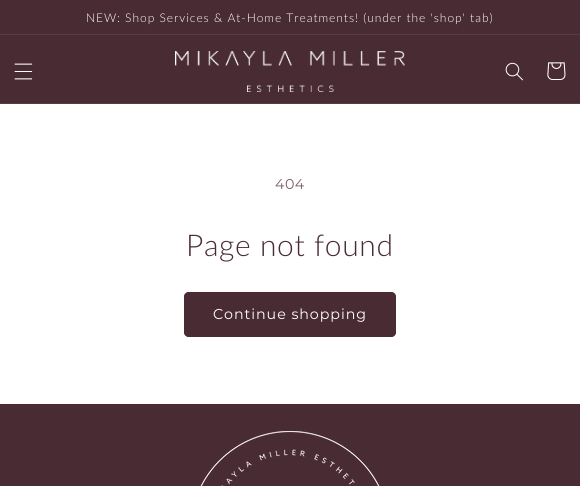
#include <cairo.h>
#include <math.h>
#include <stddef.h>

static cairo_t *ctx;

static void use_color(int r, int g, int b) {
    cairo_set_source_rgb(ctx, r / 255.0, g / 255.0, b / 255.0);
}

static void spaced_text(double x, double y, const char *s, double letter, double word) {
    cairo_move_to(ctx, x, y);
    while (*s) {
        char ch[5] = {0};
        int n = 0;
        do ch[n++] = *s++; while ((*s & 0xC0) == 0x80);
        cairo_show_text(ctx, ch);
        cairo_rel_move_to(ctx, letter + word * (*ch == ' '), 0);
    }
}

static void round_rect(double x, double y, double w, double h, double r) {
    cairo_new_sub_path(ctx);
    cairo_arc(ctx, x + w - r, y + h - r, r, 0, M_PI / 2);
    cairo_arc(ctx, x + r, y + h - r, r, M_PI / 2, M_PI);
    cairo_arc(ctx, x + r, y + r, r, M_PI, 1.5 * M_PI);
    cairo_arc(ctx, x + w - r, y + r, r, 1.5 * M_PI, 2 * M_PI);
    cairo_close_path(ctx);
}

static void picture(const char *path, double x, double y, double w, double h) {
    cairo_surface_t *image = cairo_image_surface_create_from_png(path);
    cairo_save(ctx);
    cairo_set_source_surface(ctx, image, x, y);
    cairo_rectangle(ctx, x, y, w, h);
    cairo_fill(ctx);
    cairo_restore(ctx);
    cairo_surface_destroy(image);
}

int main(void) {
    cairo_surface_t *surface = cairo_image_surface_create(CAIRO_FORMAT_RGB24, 580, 486);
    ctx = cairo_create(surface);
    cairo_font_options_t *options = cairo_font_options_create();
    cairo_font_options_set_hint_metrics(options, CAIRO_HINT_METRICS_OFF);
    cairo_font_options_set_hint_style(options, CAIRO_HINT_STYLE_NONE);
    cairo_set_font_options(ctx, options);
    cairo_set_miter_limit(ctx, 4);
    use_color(255, 255, 255);
    cairo_paint(ctx);
    use_color(73, 43, 51);
    cairo_rectangle(ctx, 0, 0, 580, 34);
    cairo_fill(ctx);
    use_color(88, 60, 67);
    cairo_rectangle(ctx, 0, 34, 580, 1);
    cairo_fill(ctx);
    cairo_select_font_face(ctx, "Lato Light", CAIRO_FONT_SLANT_NORMAL, CAIRO_FONT_WEIGHT_NORMAL);
    cairo_set_font_size(ctx, 12);
    use_color(255, 255, 255);
    spaced_text(86, 22, "NEW: Shop Services & At-Home Treatments! (under the 'shop' tab)", 0.95, 0);
    use_color(73, 43, 51);
    cairo_rectangle(ctx, 0, 35, 580, 68);
    cairo_fill(ctx);
    use_color(88, 60, 67);
    cairo_rectangle(ctx, 0, 103, 580, 1);
    cairo_fill(ctx);
    picture("img1.png", 14, 63, 19, 17);
    picture("img2.png", 175, 51, 230, 41);
    picture("img3.png", 505, 62, 18, 19);
    picture("img4.png", 547, 62, 19, 18);
    cairo_select_font_face(ctx, "Montserrat", CAIRO_FONT_SLANT_NORMAL, CAIRO_FONT_WEIGHT_NORMAL);
    cairo_set_font_size(ctx, 14.25);
    use_color(119, 96, 102);
    spaced_text(275, 189, "404", 0.5, 0);
    cairo_select_font_face(ctx, "Lato Light", CAIRO_FONT_SLANT_NORMAL, CAIRO_FONT_WEIGHT_NORMAL);
    cairo_set_font_size(ctx, 30);
    use_color(73, 43, 51);
    spaced_text(186, 256, "Page not found", 0.6, 0);
    round_rect(184, 292, 212, 45, 5);
    cairo_fill(ctx);
    round_rect(184.5, 292.5, 211, 44, 4.5);
    cairo_set_line_width(ctx, 1);
    cairo_stroke(ctx);
    cairo_select_font_face(ctx, "Montserrat", CAIRO_FONT_SLANT_NORMAL, CAIRO_FONT_WEIGHT_NORMAL);
    cairo_set_font_size(ctx, 14.25);
    use_color(255, 255, 255);
    spaced_text(213, 319, "Continue shopping", 0.95, 0);
    use_color(73, 43, 51);
    cairo_rectangle(ctx, 0, 404, 580, 82);
    cairo_fill(ctx);
    picture("img5.png", 200, 431, 180, 55);
    cairo_surface_write_to_png(surface, "result.png");
    cairo_font_options_destroy(options);
    cairo_destroy(ctx);
    cairo_surface_destroy(surface);
    return 0;
}
